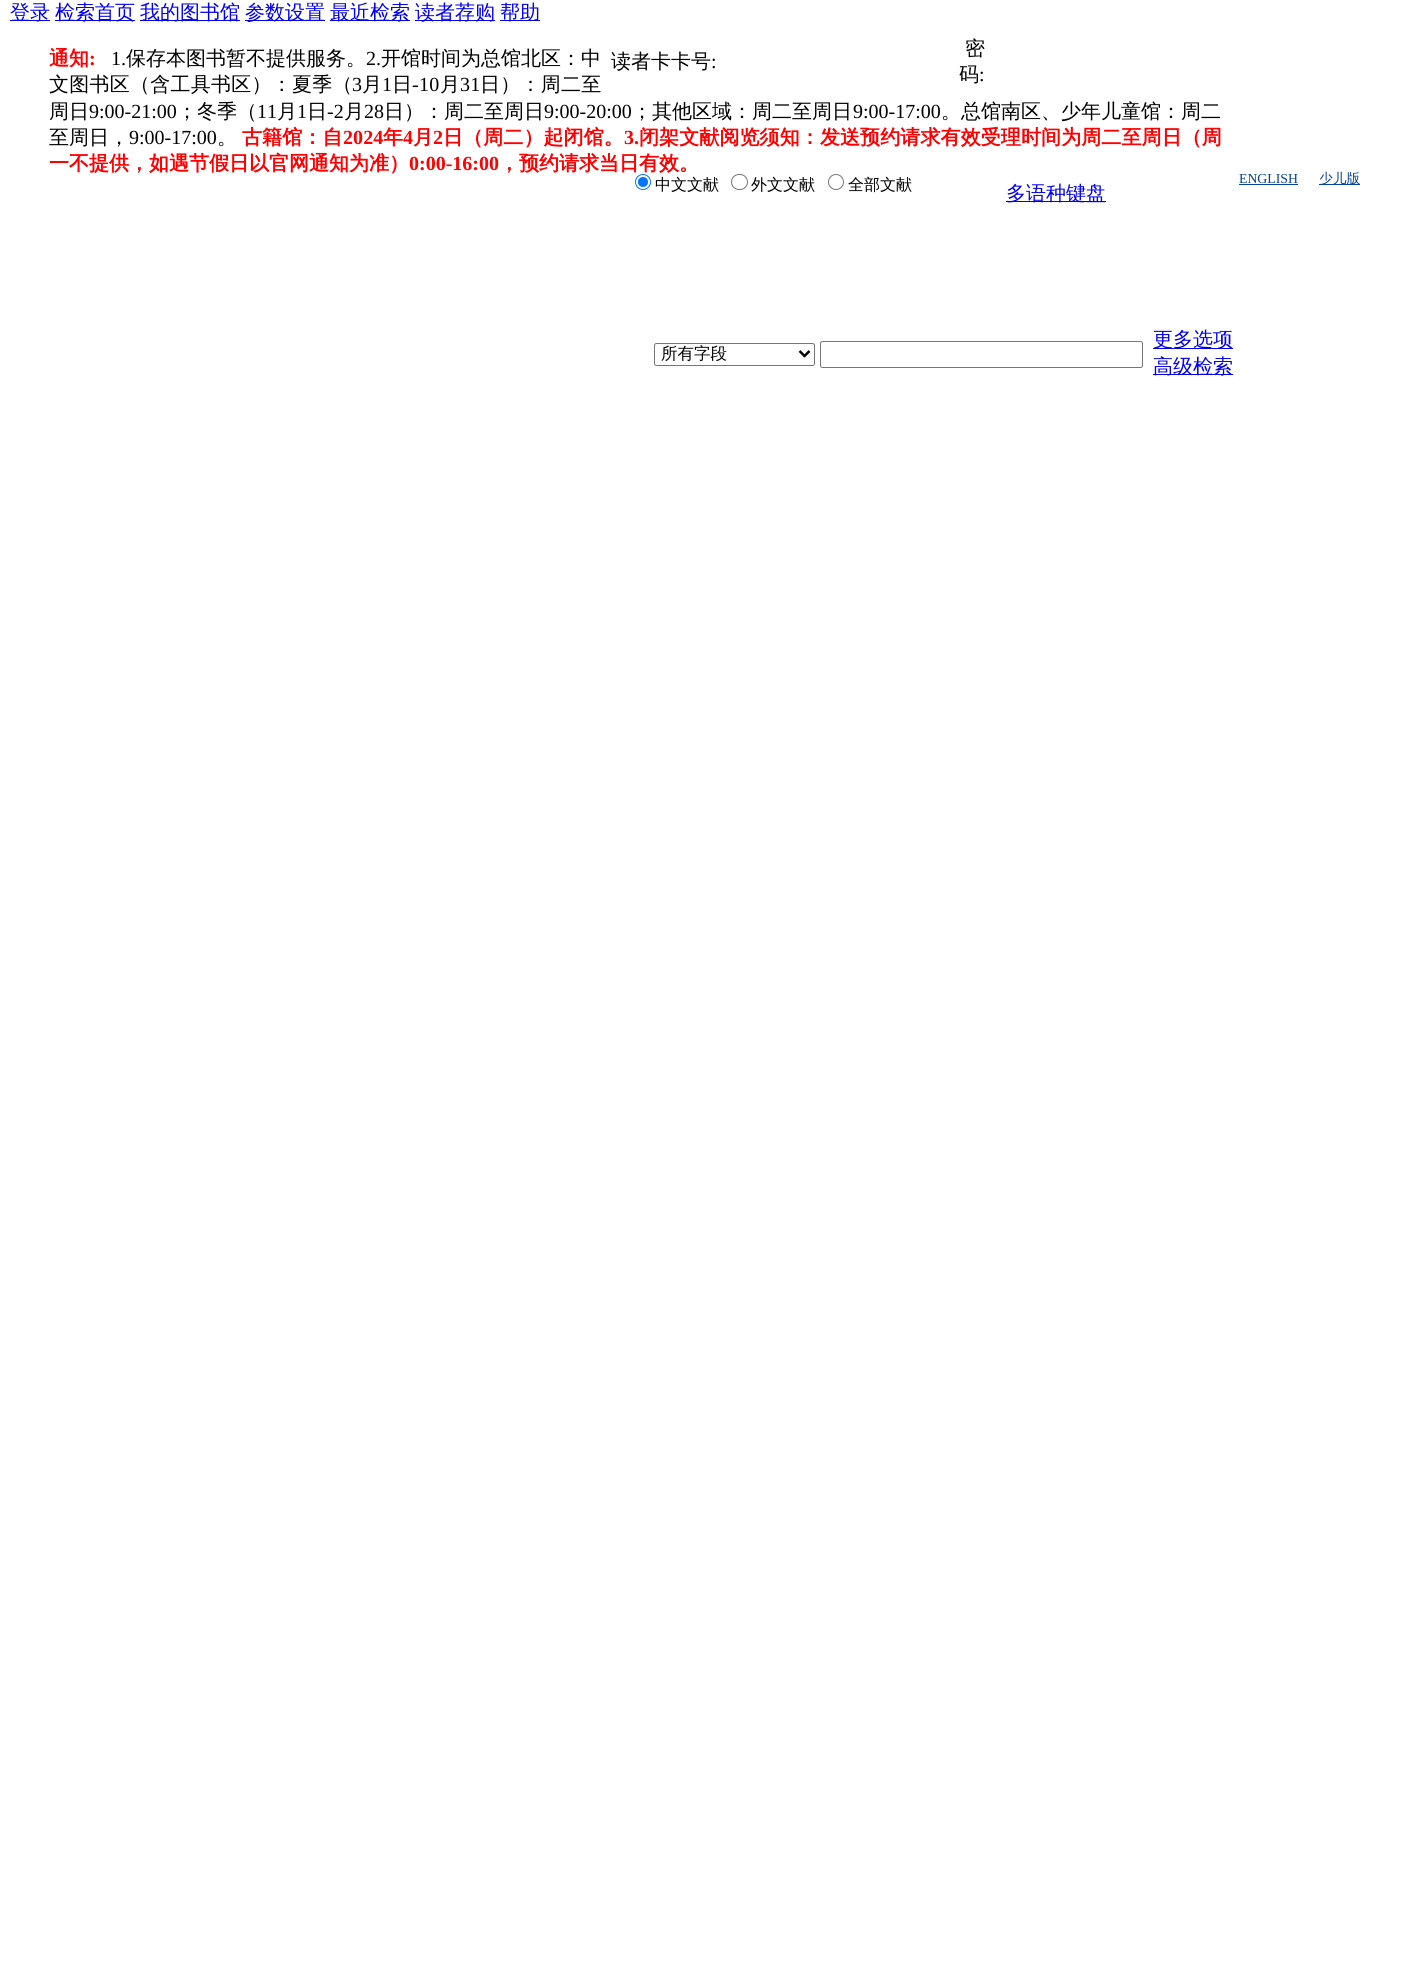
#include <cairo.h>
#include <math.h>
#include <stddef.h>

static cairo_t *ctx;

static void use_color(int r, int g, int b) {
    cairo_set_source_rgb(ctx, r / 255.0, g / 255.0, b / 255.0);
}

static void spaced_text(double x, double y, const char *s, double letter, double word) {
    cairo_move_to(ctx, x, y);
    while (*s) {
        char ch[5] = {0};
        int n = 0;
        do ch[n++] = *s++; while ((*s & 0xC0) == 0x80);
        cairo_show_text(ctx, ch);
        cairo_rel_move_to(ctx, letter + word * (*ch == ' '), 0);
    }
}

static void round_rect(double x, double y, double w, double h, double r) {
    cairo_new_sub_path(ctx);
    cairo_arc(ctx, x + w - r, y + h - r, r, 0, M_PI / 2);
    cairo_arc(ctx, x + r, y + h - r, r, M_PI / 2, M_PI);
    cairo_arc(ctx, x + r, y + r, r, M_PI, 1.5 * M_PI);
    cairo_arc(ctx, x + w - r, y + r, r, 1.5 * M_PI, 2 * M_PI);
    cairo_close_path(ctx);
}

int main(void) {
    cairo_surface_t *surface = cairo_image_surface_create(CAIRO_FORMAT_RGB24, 1420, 1976);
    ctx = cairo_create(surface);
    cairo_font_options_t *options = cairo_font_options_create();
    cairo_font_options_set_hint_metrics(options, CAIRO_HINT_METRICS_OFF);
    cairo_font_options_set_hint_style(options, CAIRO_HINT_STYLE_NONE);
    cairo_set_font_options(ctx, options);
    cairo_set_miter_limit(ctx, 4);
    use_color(255, 255, 255);
    cairo_paint(ctx);
    use_color(0, 0, 238);
    cairo_rectangle(ctx, 10, 20, 40, 1);
    cairo_fill(ctx);
    cairo_select_font_face(ctx, "WenQuanYi Zen Hei Medium", CAIRO_FONT_SLANT_NORMAL, CAIRO_FONT_WEIGHT_NORMAL);
    cairo_set_font_size(ctx, 20);
    cairo_move_to(ctx, 10, 19);
    cairo_show_text(ctx, "登录");
    cairo_rectangle(ctx, 55, 20, 80, 1);
    cairo_fill(ctx);
    cairo_move_to(ctx, 55, 19);
    cairo_show_text(ctx, "检索首页");
    cairo_rectangle(ctx, 140, 20, 100, 1);
    cairo_fill(ctx);
    cairo_move_to(ctx, 140, 19);
    cairo_show_text(ctx, "我的图书馆");
    cairo_rectangle(ctx, 245, 20, 80, 1);
    cairo_fill(ctx);
    cairo_move_to(ctx, 245, 19);
    cairo_show_text(ctx, "参数设置");
    cairo_rectangle(ctx, 330, 20, 80, 1);
    cairo_fill(ctx);
    cairo_move_to(ctx, 330, 19);
    cairo_show_text(ctx, "最近检索");
    cairo_rectangle(ctx, 415, 20, 80, 1);
    cairo_fill(ctx);
    cairo_move_to(ctx, 415, 19);
    cairo_show_text(ctx, "读者荐购");
    cairo_rectangle(ctx, 500, 20, 40, 1);
    cairo_fill(ctx);
    cairo_move_to(ctx, 500, 19);
    cairo_show_text(ctx, "帮助");
    cairo_select_font_face(ctx, "Liberation Serif", CAIRO_FONT_SLANT_NORMAL, CAIRO_FONT_WEIGHT_NORMAL);
    cairo_set_font_size(ctx, 13.75);
    use_color(6, 70, 144);
    cairo_move_to(ctx, 1239, 183);
    cairo_show_text(ctx, "ENGLISH");
    cairo_rectangle(ctx, 1239, 184, 59, 1);
    cairo_fill(ctx);
    cairo_rectangle(ctx, 1319, 184, 41, 1);
    cairo_fill(ctx);
    cairo_select_font_face(ctx, "WenQuanYi Zen Hei Medium", CAIRO_FONT_SLANT_NORMAL, CAIRO_FONT_WEIGHT_NORMAL);
    cairo_move_to(ctx, 1319, 183);
    cairo_show_text(ctx, "少儿版");
    cairo_set_font_size(ctx, 20);
    use_color(0, 0, 0);
    cairo_move_to(ctx, 611, 68);
    cairo_show_text(ctx, "读者卡卡号");
    cairo_select_font_face(ctx, "Liberation Serif", CAIRO_FONT_SLANT_NORMAL, CAIRO_FONT_WEIGHT_NORMAL);
    cairo_move_to(ctx, 711, 68);
    cairo_show_text(ctx, ":");
    cairo_select_font_face(ctx, "WenQuanYi Zen Hei Medium", CAIRO_FONT_SLANT_NORMAL, CAIRO_FONT_WEIGHT_NORMAL);
    cairo_move_to(ctx, 965, 55);
    cairo_show_text(ctx, "密");
    cairo_move_to(ctx, 959, 81);
    cairo_show_text(ctx, "码");
    cairo_select_font_face(ctx, "Liberation Serif", CAIRO_FONT_SLANT_NORMAL, CAIRO_FONT_WEIGHT_NORMAL);
    cairo_move_to(ctx, 979, 81);
    cairo_show_text(ctx, ":");
    cairo_select_font_face(ctx, "WenQuanYi Zen Hei", CAIRO_FONT_SLANT_NORMAL, CAIRO_FONT_WEIGHT_BOLD);
    use_color(255, 0, 0);
    cairo_move_to(ctx, 49, 65);
    cairo_show_text(ctx, "通知");
    cairo_select_font_face(ctx, "Liberation Serif", CAIRO_FONT_SLANT_NORMAL, CAIRO_FONT_WEIGHT_BOLD);
    cairo_move_to(ctx, 89, 65);
    cairo_show_text(ctx, ":");
    cairo_select_font_face(ctx, "Liberation Serif", CAIRO_FONT_SLANT_NORMAL, CAIRO_FONT_WEIGHT_NORMAL);
    use_color(0, 0, 0);
    cairo_move_to(ctx, 111, 65);
    cairo_show_text(ctx, "1.");
    cairo_select_font_face(ctx, "WenQuanYi Zen Hei Medium", CAIRO_FONT_SLANT_NORMAL, CAIRO_FONT_WEIGHT_NORMAL);
    cairo_move_to(ctx, 126, 65);
    cairo_show_text(ctx, "保存本图书暂不提供服务。");
    cairo_select_font_face(ctx, "Liberation Serif", CAIRO_FONT_SLANT_NORMAL, CAIRO_FONT_WEIGHT_NORMAL);
    cairo_move_to(ctx, 366, 65);
    cairo_show_text(ctx, "2.");
    cairo_select_font_face(ctx, "WenQuanYi Zen Hei Medium", CAIRO_FONT_SLANT_NORMAL, CAIRO_FONT_WEIGHT_NORMAL);
    cairo_move_to(ctx, 381, 65);
    cairo_show_text(ctx, "开馆时间为总馆北区：中");
    spaced_text(49, 91, "文图书区（含工具书区）：夏季（", 0.25, 0);
    cairo_select_font_face(ctx, "Liberation Serif", CAIRO_FONT_SLANT_NORMAL, CAIRO_FONT_WEIGHT_NORMAL);
    spaced_text(352, 91, "3", 0.25, 0);
    cairo_select_font_face(ctx, "WenQuanYi Zen Hei Medium", CAIRO_FONT_SLANT_NORMAL, CAIRO_FONT_WEIGHT_NORMAL);
    spaced_text(362, 91, "月", 0.25, 0);
    cairo_select_font_face(ctx, "Liberation Serif", CAIRO_FONT_SLANT_NORMAL, CAIRO_FONT_WEIGHT_NORMAL);
    spaced_text(382, 91, "1", 0.25, 0);
    cairo_select_font_face(ctx, "WenQuanYi Zen Hei Medium", CAIRO_FONT_SLANT_NORMAL, CAIRO_FONT_WEIGHT_NORMAL);
    spaced_text(392, 91, "日", 0.25, 0);
    cairo_select_font_face(ctx, "Liberation Serif", CAIRO_FONT_SLANT_NORMAL, CAIRO_FONT_WEIGHT_NORMAL);
    spaced_text(412, 91, "-10", 0.25, 0);
    cairo_select_font_face(ctx, "WenQuanYi Zen Hei Medium", CAIRO_FONT_SLANT_NORMAL, CAIRO_FONT_WEIGHT_NORMAL);
    spaced_text(440, 91, "月", 0.25, 0);
    cairo_select_font_face(ctx, "Liberation Serif", CAIRO_FONT_SLANT_NORMAL, CAIRO_FONT_WEIGHT_NORMAL);
    spaced_text(460, 91, "31", 0.25, 0);
    cairo_select_font_face(ctx, "WenQuanYi Zen Hei Medium", CAIRO_FONT_SLANT_NORMAL, CAIRO_FONT_WEIGHT_NORMAL);
    spaced_text(480, 91, "日）：周二至", 0.25, 0);
    cairo_move_to(ctx, 49, 118);
    cairo_show_text(ctx, "周日");
    cairo_select_font_face(ctx, "Liberation Serif", CAIRO_FONT_SLANT_NORMAL, CAIRO_FONT_WEIGHT_NORMAL);
    cairo_move_to(ctx, 89, 118);
    cairo_show_text(ctx, "9:00-21:00");
    cairo_select_font_face(ctx, "WenQuanYi Zen Hei Medium", CAIRO_FONT_SLANT_NORMAL, CAIRO_FONT_WEIGHT_NORMAL);
    cairo_move_to(ctx, 177, 118);
    cairo_show_text(ctx, "；冬季（");
    cairo_select_font_face(ctx, "Liberation Serif", CAIRO_FONT_SLANT_NORMAL, CAIRO_FONT_WEIGHT_NORMAL);
    cairo_move_to(ctx, 257, 118);
    cairo_show_text(ctx, "11");
    cairo_select_font_face(ctx, "WenQuanYi Zen Hei Medium", CAIRO_FONT_SLANT_NORMAL, CAIRO_FONT_WEIGHT_NORMAL);
    cairo_move_to(ctx, 277, 118);
    cairo_show_text(ctx, "月");
    cairo_select_font_face(ctx, "Liberation Serif", CAIRO_FONT_SLANT_NORMAL, CAIRO_FONT_WEIGHT_NORMAL);
    cairo_move_to(ctx, 297, 118);
    cairo_show_text(ctx, "1");
    cairo_select_font_face(ctx, "WenQuanYi Zen Hei Medium", CAIRO_FONT_SLANT_NORMAL, CAIRO_FONT_WEIGHT_NORMAL);
    cairo_move_to(ctx, 307, 118);
    cairo_show_text(ctx, "日");
    cairo_select_font_face(ctx, "Liberation Serif", CAIRO_FONT_SLANT_NORMAL, CAIRO_FONT_WEIGHT_NORMAL);
    cairo_move_to(ctx, 327, 118);
    cairo_show_text(ctx, "-2");
    cairo_select_font_face(ctx, "WenQuanYi Zen Hei Medium", CAIRO_FONT_SLANT_NORMAL, CAIRO_FONT_WEIGHT_NORMAL);
    cairo_move_to(ctx, 344, 118);
    cairo_show_text(ctx, "月");
    cairo_select_font_face(ctx, "Liberation Serif", CAIRO_FONT_SLANT_NORMAL, CAIRO_FONT_WEIGHT_NORMAL);
    cairo_move_to(ctx, 364, 118);
    cairo_show_text(ctx, "28");
    cairo_select_font_face(ctx, "WenQuanYi Zen Hei Medium", CAIRO_FONT_SLANT_NORMAL, CAIRO_FONT_WEIGHT_NORMAL);
    cairo_move_to(ctx, 384, 118);
    cairo_show_text(ctx, "日）：周二至周日");
    cairo_select_font_face(ctx, "Liberation Serif", CAIRO_FONT_SLANT_NORMAL, CAIRO_FONT_WEIGHT_NORMAL);
    cairo_move_to(ctx, 544, 118);
    cairo_show_text(ctx, "9:00-20:00");
    cairo_select_font_face(ctx, "WenQuanYi Zen Hei Medium", CAIRO_FONT_SLANT_NORMAL, CAIRO_FONT_WEIGHT_NORMAL);
    cairo_move_to(ctx, 632, 118);
    cairo_show_text(ctx, "；其他区域：周二至周日");
    cairo_select_font_face(ctx, "Liberation Serif", CAIRO_FONT_SLANT_NORMAL, CAIRO_FONT_WEIGHT_NORMAL);
    cairo_move_to(ctx, 853, 118);
    cairo_show_text(ctx, "9:00-17:00");
    cairo_select_font_face(ctx, "WenQuanYi Zen Hei Medium", CAIRO_FONT_SLANT_NORMAL, CAIRO_FONT_WEIGHT_NORMAL);
    cairo_move_to(ctx, 941, 118);
    cairo_show_text(ctx, "。总馆南区、少年儿童馆：周二");
    cairo_move_to(ctx, 49, 144);
    cairo_show_text(ctx, "至周日，");
    cairo_select_font_face(ctx, "Liberation Serif", CAIRO_FONT_SLANT_NORMAL, CAIRO_FONT_WEIGHT_NORMAL);
    cairo_move_to(ctx, 129, 144);
    cairo_show_text(ctx, "9:00-17:00");
    cairo_select_font_face(ctx, "WenQuanYi Zen Hei Medium", CAIRO_FONT_SLANT_NORMAL, CAIRO_FONT_WEIGHT_NORMAL);
    cairo_move_to(ctx, 217, 144);
    cairo_show_text(ctx, "。");
    cairo_select_font_face(ctx, "WenQuanYi Zen Hei", CAIRO_FONT_SLANT_NORMAL, CAIRO_FONT_WEIGHT_BOLD);
    use_color(255, 0, 0);
    spaced_text(242, 144, "古籍馆：自", 0.1, 0);
    cairo_select_font_face(ctx, "Liberation Serif", CAIRO_FONT_SLANT_NORMAL, CAIRO_FONT_WEIGHT_BOLD);
    spaced_text(343, 144, "2024", 0.1, 0);
    cairo_select_font_face(ctx, "WenQuanYi Zen Hei", CAIRO_FONT_SLANT_NORMAL, CAIRO_FONT_WEIGHT_BOLD);
    spaced_text(383, 144, "年", 0.1, 0);
    cairo_select_font_face(ctx, "Liberation Serif", CAIRO_FONT_SLANT_NORMAL, CAIRO_FONT_WEIGHT_BOLD);
    spaced_text(403, 144, "4", 0.1, 0);
    cairo_select_font_face(ctx, "WenQuanYi Zen Hei", CAIRO_FONT_SLANT_NORMAL, CAIRO_FONT_WEIGHT_BOLD);
    spaced_text(413, 144, "月", 0.1, 0);
    cairo_select_font_face(ctx, "Liberation Serif", CAIRO_FONT_SLANT_NORMAL, CAIRO_FONT_WEIGHT_BOLD);
    spaced_text(433, 144, "2", 0.1, 0);
    cairo_select_font_face(ctx, "WenQuanYi Zen Hei", CAIRO_FONT_SLANT_NORMAL, CAIRO_FONT_WEIGHT_BOLD);
    spaced_text(443, 144, "日（周二）起闭馆。", 0.1, 0);
    cairo_select_font_face(ctx, "Liberation Serif", CAIRO_FONT_SLANT_NORMAL, CAIRO_FONT_WEIGHT_BOLD);
    spaced_text(624, 144, "3.", 0.1, 0);
    cairo_select_font_face(ctx, "WenQuanYi Zen Hei", CAIRO_FONT_SLANT_NORMAL, CAIRO_FONT_WEIGHT_BOLD);
    spaced_text(639, 144, "闭架文献阅览须知：发送预约请求有效受理时间为周二至周日（周", 0.1, 0);
    cairo_move_to(ctx, 49, 170);
    cairo_show_text(ctx, "一不提供，如遇节假日以官网通知为准）");
    cairo_select_font_face(ctx, "Liberation Serif", CAIRO_FONT_SLANT_NORMAL, CAIRO_FONT_WEIGHT_BOLD);
    cairo_move_to(ctx, 409, 170);
    cairo_show_text(ctx, "0:00-16:00");
    cairo_select_font_face(ctx, "WenQuanYi Zen Hei", CAIRO_FONT_SLANT_NORMAL, CAIRO_FONT_WEIGHT_BOLD);
    cairo_move_to(ctx, 499, 170);
    cairo_show_text(ctx, "，预约请求当日有效。");
    cairo_new_path(ctx);
    cairo_arc(ctx, 643, 182, 7.5, 0, 2 * M_PI);
    use_color(0, 117, 255);
    cairo_set_line_width(ctx, 1);
    cairo_stroke(ctx);
    cairo_arc(ctx, 643, 182, 5, 0, 2 * M_PI);
    cairo_fill(ctx);
    cairo_select_font_face(ctx, "WenQuanYi Zen Hei Medium", CAIRO_FONT_SLANT_NORMAL, CAIRO_FONT_WEIGHT_NORMAL);
    cairo_set_font_size(ctx, 16);
    use_color(0, 0, 0);
    cairo_move_to(ctx, 655, 190);
    cairo_show_text(ctx, "中文文献");
    round_rect(731.5, 174.5, 16, 15, 7.5);
    use_color(118, 118, 118);
    cairo_stroke(ctx);
    use_color(0, 0, 0);
    cairo_move_to(ctx, 751, 190);
    cairo_show_text(ctx, "外文文献");
    cairo_new_path(ctx);
    cairo_arc(ctx, 836, 182, 7.5, 0, 2 * M_PI);
    use_color(118, 118, 118);
    cairo_stroke(ctx);
    use_color(0, 0, 0);
    cairo_move_to(ctx, 848, 190);
    cairo_show_text(ctx, "全部文献");
    use_color(0, 0, 238);
    cairo_rectangle(ctx, 1006, 201, 100, 1);
    cairo_fill(ctx);
    cairo_set_font_size(ctx, 20);
    cairo_move_to(ctx, 1006, 200);
    cairo_show_text(ctx, "多语种键盘");
    round_rect(654.5, 343.5, 160, 22, 2);
    use_color(118, 118, 118);
    cairo_stroke(ctx);
    cairo_new_path(ctx);
    cairo_move_to(ctx, 799.5, 351);
    cairo_line_to(ctx, 804.5, 356);
    cairo_line_to(ctx, 809.5, 351);
    use_color(0, 0, 0);
    cairo_set_line_width(ctx, 2.5);
    cairo_stroke(ctx);
    cairo_set_font_size(ctx, 16.5);
    cairo_move_to(ctx, 661, 359);
    cairo_show_text(ctx, "所有字段");
    round_rect(820.5, 341.5, 322, 26, 2);
    use_color(118, 118, 118);
    cairo_set_line_width(ctx, 1);
    cairo_stroke(ctx);
    use_color(0, 0, 238);
    cairo_rectangle(ctx, 1153, 348, 80, 1);
    cairo_fill(ctx);
    cairo_set_font_size(ctx, 20);
    cairo_move_to(ctx, 1153, 346);
    cairo_show_text(ctx, "更多选项");
    cairo_rectangle(ctx, 1153, 374, 80, 1);
    cairo_fill(ctx);
    cairo_move_to(ctx, 1153, 373);
    cairo_show_text(ctx, "高级检索");
    cairo_surface_write_to_png(surface, "result.png");
    cairo_font_options_destroy(options);
    cairo_destroy(ctx);
    cairo_surface_destroy(surface);
    return 0;
}
